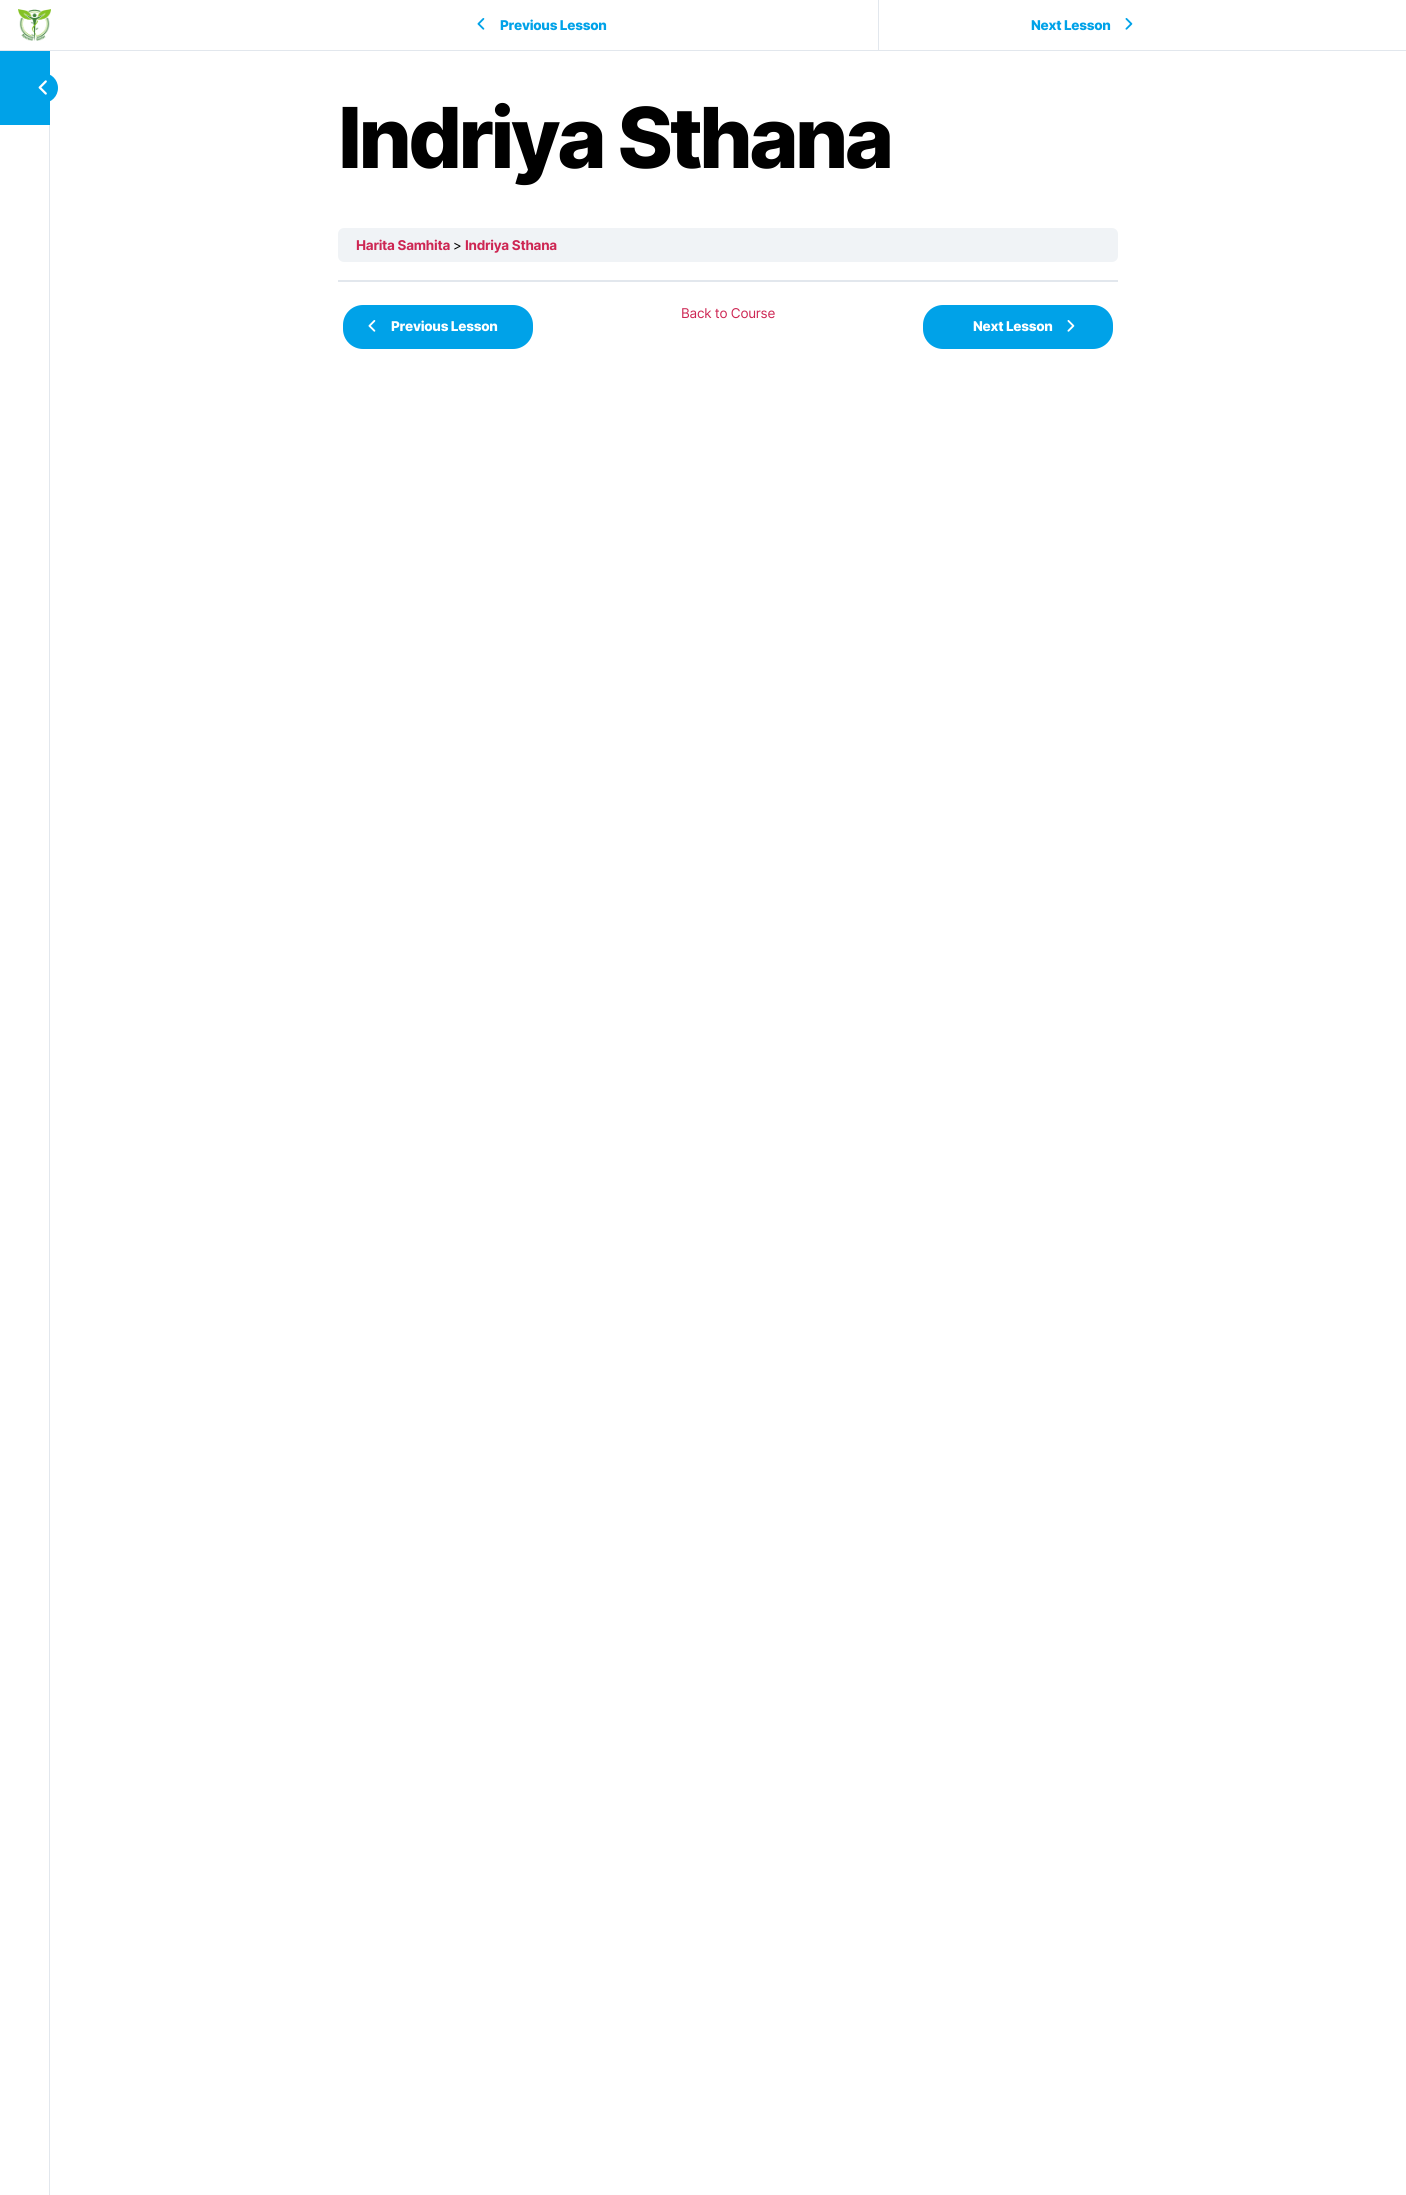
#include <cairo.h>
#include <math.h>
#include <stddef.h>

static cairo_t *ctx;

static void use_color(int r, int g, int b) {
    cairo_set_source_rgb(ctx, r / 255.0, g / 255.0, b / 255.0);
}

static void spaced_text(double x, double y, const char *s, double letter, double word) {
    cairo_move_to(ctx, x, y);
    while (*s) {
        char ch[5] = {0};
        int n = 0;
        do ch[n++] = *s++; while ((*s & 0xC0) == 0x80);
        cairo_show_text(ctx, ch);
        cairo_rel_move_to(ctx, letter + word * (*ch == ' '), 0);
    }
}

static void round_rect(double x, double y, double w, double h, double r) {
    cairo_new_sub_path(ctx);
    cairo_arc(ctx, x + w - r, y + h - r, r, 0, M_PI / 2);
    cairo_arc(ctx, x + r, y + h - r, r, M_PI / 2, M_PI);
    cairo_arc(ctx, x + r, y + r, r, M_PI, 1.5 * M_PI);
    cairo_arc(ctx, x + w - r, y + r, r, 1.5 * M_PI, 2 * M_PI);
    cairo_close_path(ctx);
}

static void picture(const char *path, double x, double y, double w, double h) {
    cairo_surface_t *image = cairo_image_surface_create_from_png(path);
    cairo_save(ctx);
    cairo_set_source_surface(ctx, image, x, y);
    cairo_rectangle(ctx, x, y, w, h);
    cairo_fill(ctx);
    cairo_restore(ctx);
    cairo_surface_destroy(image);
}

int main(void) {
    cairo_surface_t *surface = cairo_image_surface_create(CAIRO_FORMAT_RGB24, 1406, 2195);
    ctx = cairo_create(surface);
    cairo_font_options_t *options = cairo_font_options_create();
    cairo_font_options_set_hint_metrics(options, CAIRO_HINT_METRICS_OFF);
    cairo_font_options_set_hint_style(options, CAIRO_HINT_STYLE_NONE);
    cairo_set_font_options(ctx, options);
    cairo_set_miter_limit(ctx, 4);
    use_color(255, 255, 255);
    cairo_paint(ctx);
    use_color(226, 231, 237);
    cairo_rectangle(ctx, 49, 125, 1, 2070);
    cairo_fill(ctx);
    use_color(0, 162, 232);
    cairo_rectangle(ctx, 0, 51, 50, 74);
    cairo_fill(ctx);
    cairo_arc(ctx, 43, 88, 15, 0, 2 * M_PI);
    cairo_fill(ctx);
    picture("img1.png", 38, 80, 9, 15);
    use_color(226, 231, 237);
    cairo_rectangle(ctx, 0, 50, 1406, 1);
    cairo_fill(ctx);
    picture("img2.png", 18, 9, 33, 32);
    cairo_rectangle(ctx, 878, 0, 1, 50);
    cairo_fill(ctx);
    picture("img3.png", 477, 18, 8, 12);
    cairo_select_font_face(ctx, "Inter ExtraBold", CAIRO_FONT_SLANT_NORMAL, CAIRO_FONT_WEIGHT_NORMAL);
    cairo_set_font_size(ctx, 13.5);
    use_color(0, 162, 232);
    spaced_text(500, 30, "Previous Lesson", -0.25, 0);
    spaced_text(1031, 30, "Next Lesson", -0.25, 0);
    picture("img4.png", 1125, 18, 8, 12);
    cairo_set_font_size(ctx, 84);
    use_color(0, 0, 0);
    spaced_text(338, 168, "Indriya Sthana", -3.5, 0);
    use_color(240, 243, 246);
    round_rect(338, 228, 780, 34, 6);
    cairo_fill(ctx);
    cairo_select_font_face(ctx, "Inter", CAIRO_FONT_SLANT_NORMAL, CAIRO_FONT_WEIGHT_BOLD);
    cairo_set_font_size(ctx, 13.5);
    use_color(205, 38, 83);
    spaced_text(356, 250, "Harita Samhita", -0.25, 0);
    cairo_select_font_face(ctx, "Inter", CAIRO_FONT_SLANT_NORMAL, CAIRO_FONT_WEIGHT_NORMAL);
    use_color(0, 0, 0);
    spaced_text(453, 250, ">", -0.25, 0);
    cairo_select_font_face(ctx, "Inter", CAIRO_FONT_SLANT_NORMAL, CAIRO_FONT_WEIGHT_BOLD);
    use_color(205, 38, 83);
    spaced_text(465, 250, "Indriya Sthana", -0.25, 0);
    use_color(226, 231, 237);
    cairo_rectangle(ctx, 338, 280, 780, 2);
    cairo_fill(ctx);
    cairo_select_font_face(ctx, "Inter", CAIRO_FONT_SLANT_NORMAL, CAIRO_FONT_WEIGHT_NORMAL);
    use_color(205, 38, 83);
    spaced_text(681, 318, "Back to Course", -0.25, 0);
    use_color(0, 162, 232);
    round_rect(343, 305, 190, 44, 20);
    cairo_fill(ctx);
    picture("img5.png", 368, 320, 8, 12);
    cairo_select_font_face(ctx, "Inter ExtraBold", CAIRO_FONT_SLANT_NORMAL, CAIRO_FONT_WEIGHT_NORMAL);
    use_color(255, 255, 255);
    spaced_text(391, 331, "Previous Lesson", -0.25, 0);
    use_color(0, 162, 232);
    round_rect(923, 305, 190, 44, 20);
    cairo_fill(ctx);
    use_color(255, 255, 255);
    spaced_text(973, 331, "Next Lesson", -0.25, 0);
    picture("img6.png", 1067, 320, 8, 12);
    cairo_surface_write_to_png(surface, "result.png");
    cairo_font_options_destroy(options);
    cairo_destroy(ctx);
    cairo_surface_destroy(surface);
    return 0;
}
